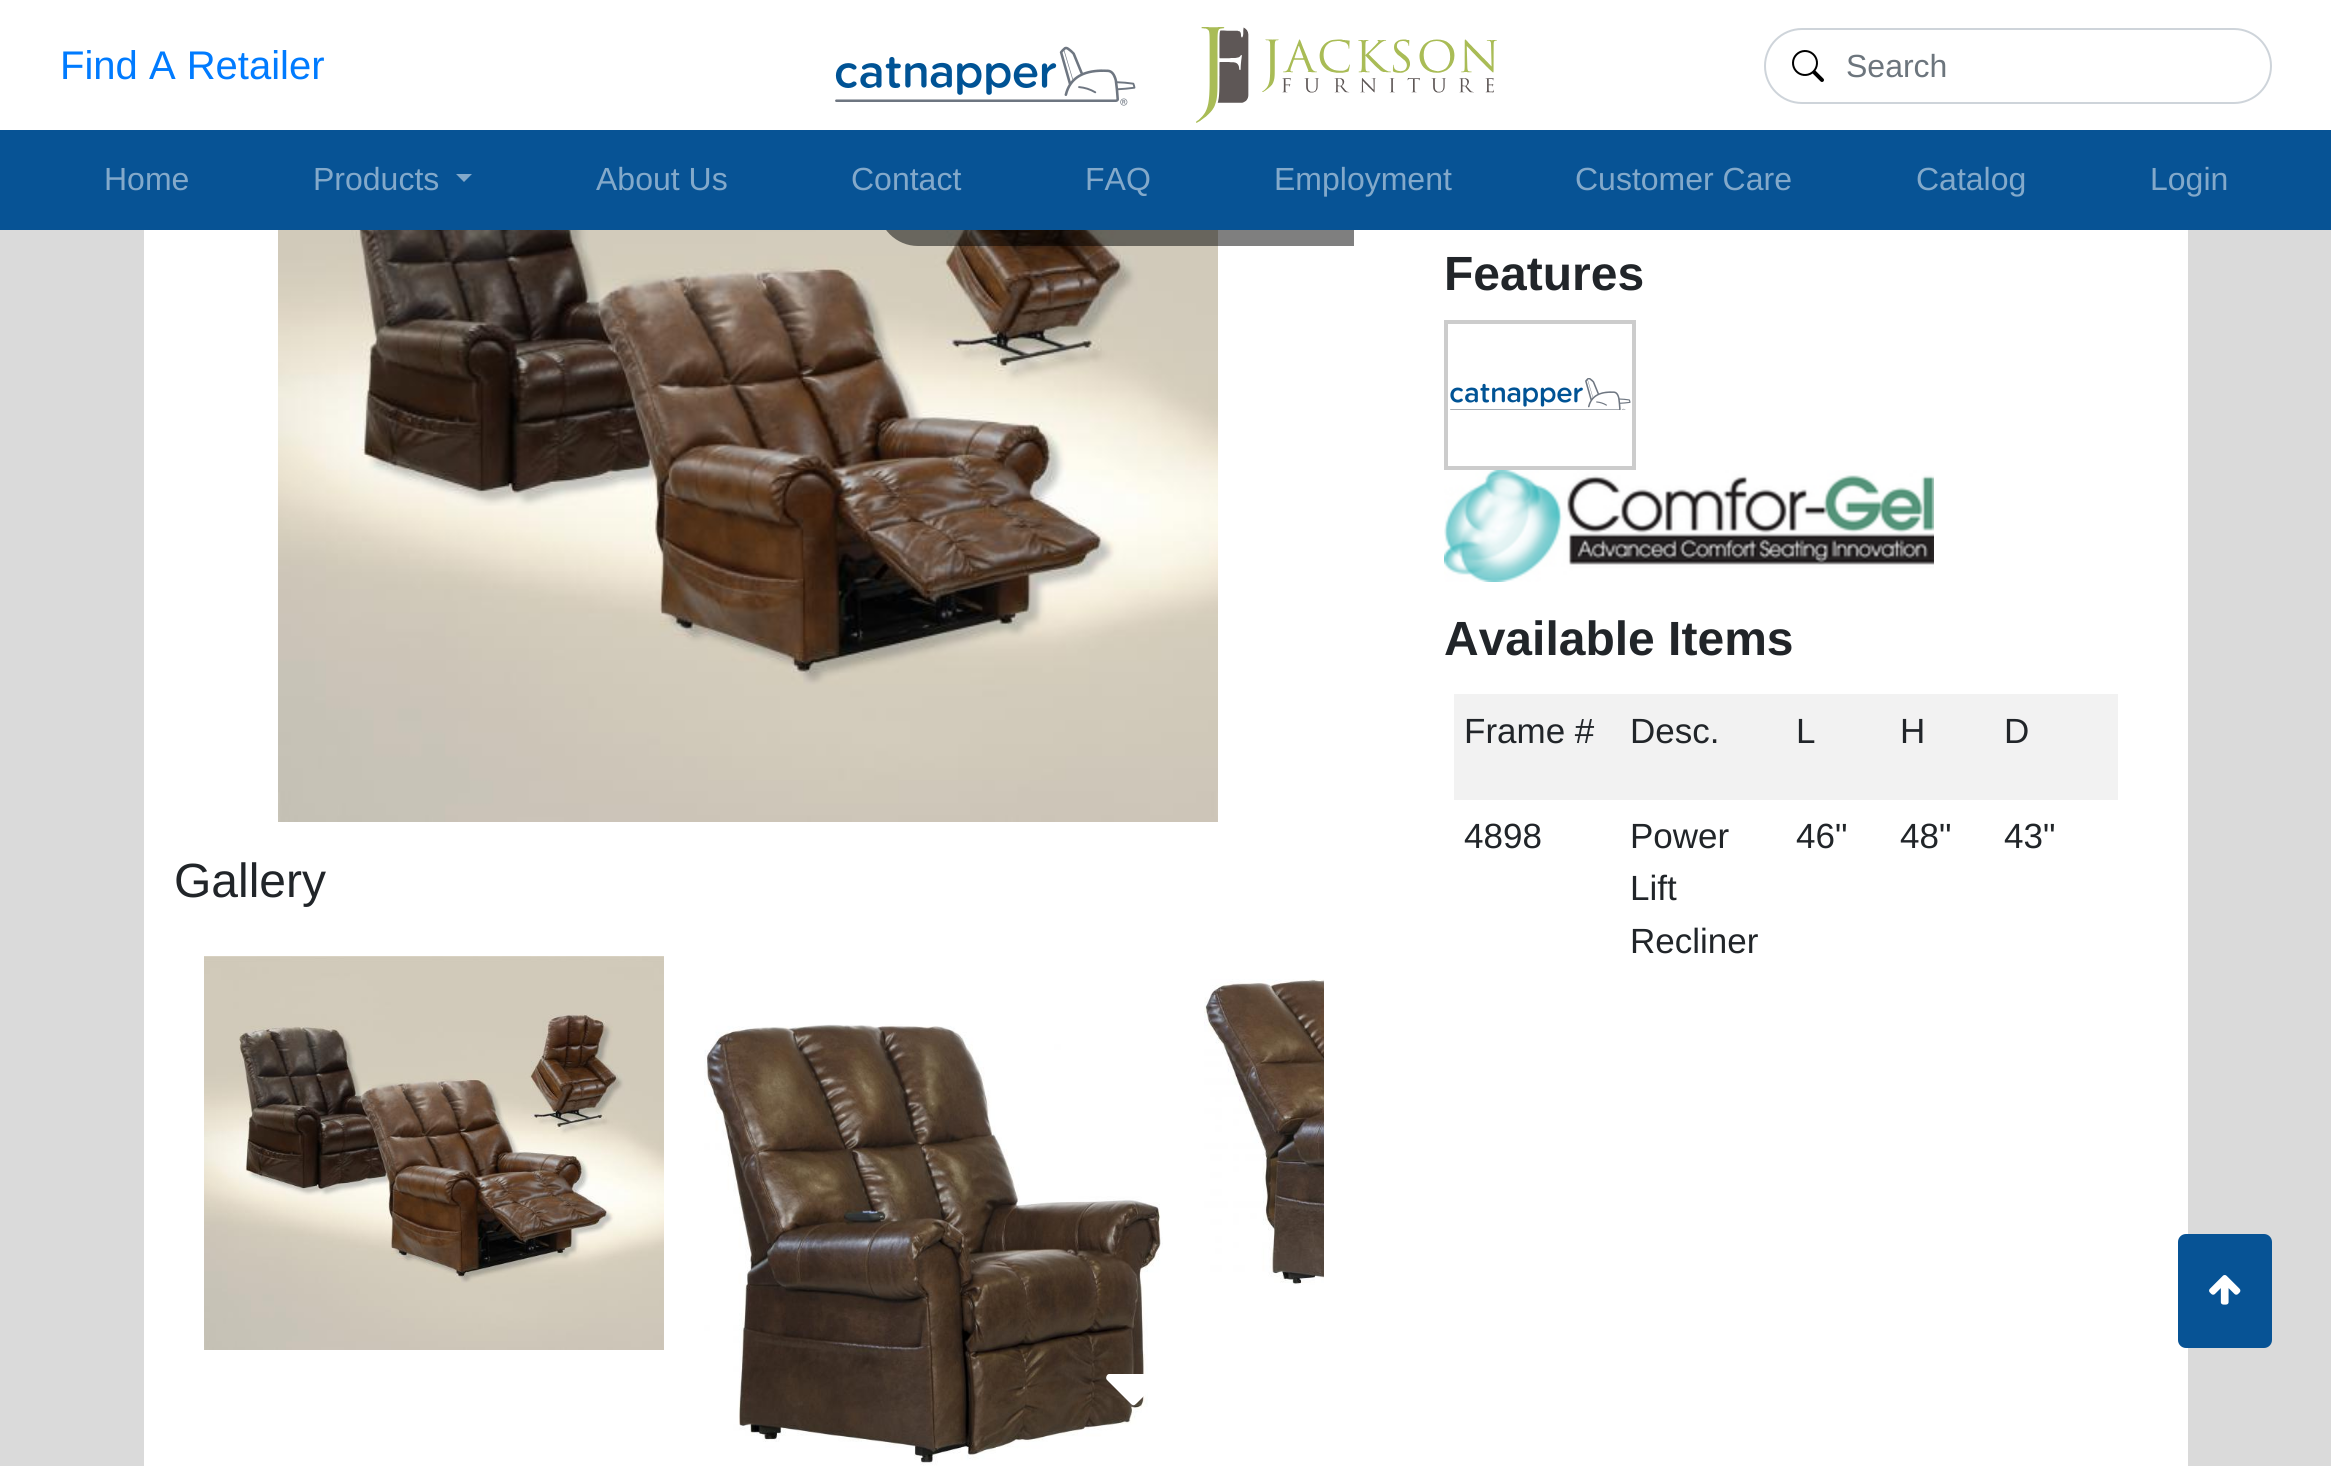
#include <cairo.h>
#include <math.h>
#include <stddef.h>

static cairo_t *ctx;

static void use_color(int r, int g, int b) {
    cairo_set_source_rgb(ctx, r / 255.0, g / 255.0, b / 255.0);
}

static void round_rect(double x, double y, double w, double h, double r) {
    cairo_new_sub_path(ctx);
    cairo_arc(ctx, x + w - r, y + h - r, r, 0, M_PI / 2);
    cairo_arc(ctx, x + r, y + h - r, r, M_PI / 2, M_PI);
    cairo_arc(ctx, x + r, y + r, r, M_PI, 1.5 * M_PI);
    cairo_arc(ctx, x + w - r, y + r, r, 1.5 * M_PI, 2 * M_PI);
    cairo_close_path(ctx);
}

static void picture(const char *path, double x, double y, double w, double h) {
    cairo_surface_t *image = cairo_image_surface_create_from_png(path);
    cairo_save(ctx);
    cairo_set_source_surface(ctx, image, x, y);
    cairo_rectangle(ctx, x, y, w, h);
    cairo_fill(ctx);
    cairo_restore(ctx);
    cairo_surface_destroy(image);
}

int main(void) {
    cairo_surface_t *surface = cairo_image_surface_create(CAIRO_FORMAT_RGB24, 2331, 1466);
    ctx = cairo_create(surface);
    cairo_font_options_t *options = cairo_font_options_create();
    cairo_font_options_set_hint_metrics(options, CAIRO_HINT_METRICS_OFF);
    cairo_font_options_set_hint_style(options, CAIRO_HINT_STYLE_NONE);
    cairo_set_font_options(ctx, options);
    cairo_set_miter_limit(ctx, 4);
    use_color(218, 218, 218);
    cairo_paint(ctx);
    use_color(255, 255, 255);
    cairo_rectangle(ctx, 144, 230, 2044, 1236);
    cairo_fill(ctx);
    picture("img4.png", 278, 230, 940, 592);
    cairo_set_source_rgba(ctx, 0, 0, 0, 0.5);
    cairo_new_path(ctx);
    cairo_move_to(ctx, 878, 16);
    cairo_line_to(ctx, 1354, 16);
    cairo_line_to(ctx, 1354, 246);
    cairo_line_to(ctx, 918, 246);
    cairo_curve_to(ctx, 896, 246, 878, 228, 878, 206);
    cairo_close_path(ctx);
    cairo_fill(ctx);
    use_color(255, 255, 255);
    cairo_rectangle(ctx, 0, 0, 2331, 130);
    cairo_fill(ctx);
    cairo_select_font_face(ctx, "Liberation Sans", CAIRO_FONT_SLANT_NORMAL, CAIRO_FONT_WEIGHT_NORMAL);
    cairo_set_font_size(ctx, 40);
    use_color(0, 123, 255);
    cairo_move_to(ctx, 60, 79);
    cairo_show_text(ctx, "Find A Retailer");
    picture("img1.png", 835, 46, 301, 60);
    picture("img2.png", 1196, 27, 301, 96);
    picture("img3.png", 1792, 50, 32, 32);
    round_rect(1765, 29, 506, 74, 37);
    use_color(206, 212, 218);
    cairo_stroke(ctx);
    cairo_set_font_size(ctx, 32);
    use_color(108, 117, 125);
    cairo_move_to(ctx, 1846, 77);
    cairo_show_text(ctx, "Search");
    use_color(7, 83, 149);
    cairo_rectangle(ctx, 0, 130, 2331, 100);
    cairo_fill(ctx);
    use_color(131, 169, 202);
    cairo_move_to(ctx, 104, 190);
    cairo_show_text(ctx, "Home");
    cairo_move_to(ctx, 313, 190);
    cairo_show_text(ctx, "Products");
    cairo_new_path(ctx);
    cairo_move_to(ctx, 456, 174);
    cairo_line_to(ctx, 472, 174);
    cairo_line_to(ctx, 464, 182);
    cairo_close_path(ctx);
    cairo_fill(ctx);
    cairo_move_to(ctx, 596, 190);
    cairo_show_text(ctx, "About Us");
    cairo_move_to(ctx, 851, 190);
    cairo_show_text(ctx, "Contact");
    cairo_move_to(ctx, 1085, 190);
    cairo_show_text(ctx, "FAQ");
    cairo_move_to(ctx, 1274, 190);
    cairo_show_text(ctx, "Employment");
    cairo_move_to(ctx, 1575, 190);
    cairo_show_text(ctx, "Customer Care");
    cairo_move_to(ctx, 1916, 190);
    cairo_show_text(ctx, "Catalog");
    cairo_move_to(ctx, 2150, 190);
    cairo_show_text(ctx, "Login");
    cairo_set_font_size(ctx, 48);
    use_color(33, 37, 41);
    cairo_move_to(ctx, 174, 897);
    cairo_show_text(ctx, "Gallery");
    picture("img5.png", 204, 956, 460, 394);
    picture("img6.png", 704, 1024, 459, 442);
    picture("img7.png", 1204, 979, 120, 306);
    cairo_select_font_face(ctx, "Liberation Sans", CAIRO_FONT_SLANT_NORMAL, CAIRO_FONT_WEIGHT_BOLD);
    cairo_move_to(ctx, 1444, 290);
    cairo_show_text(ctx, "Features");
    picture("img8.png", 1450, 378, 181, 32);
    cairo_rectangle(ctx, 1446, 322, 188, 146);
    use_color(204, 204, 204);
    cairo_set_line_width(ctx, 4);
    cairo_stroke(ctx);
    picture("img9.png", 1444, 470, 490, 112);
    use_color(33, 37, 41);
    cairo_move_to(ctx, 1444, 655);
    cairo_show_text(ctx, "Available Items");
    use_color(242, 242, 242);
    cairo_rectangle(ctx, 1454, 694, 664, 106);
    cairo_fill(ctx);
    cairo_select_font_face(ctx, "Liberation Sans", CAIRO_FONT_SLANT_NORMAL, CAIRO_FONT_WEIGHT_NORMAL);
    cairo_set_font_size(ctx, 35);
    use_color(33, 37, 41);
    cairo_move_to(ctx, 1464, 743);
    cairo_show_text(ctx, "Frame #");
    cairo_move_to(ctx, 1630, 743);
    cairo_show_text(ctx, "Desc.");
    cairo_move_to(ctx, 1796, 743);
    cairo_show_text(ctx, "L");
    cairo_move_to(ctx, 1900, 743);
    cairo_show_text(ctx, "H");
    cairo_move_to(ctx, 2004, 743);
    cairo_show_text(ctx, "D");
    cairo_move_to(ctx, 1464, 848);
    cairo_show_text(ctx, "4898");
    cairo_move_to(ctx, 1630, 848);
    cairo_show_text(ctx, "Power");
    cairo_move_to(ctx, 1630, 900);
    cairo_show_text(ctx, "Lift");
    cairo_move_to(ctx, 1630, 953);
    cairo_show_text(ctx, "Recliner");
    cairo_move_to(ctx, 1796, 848);
    cairo_show_text(ctx, "46\"");
    cairo_move_to(ctx, 1900, 848);
    cairo_show_text(ctx, "48\"");
    cairo_move_to(ctx, 2004, 848);
    cairo_show_text(ctx, "43\"");
    use_color(7, 83, 149);
    round_rect(2178, 1234, 94, 114, 8);
    cairo_fill(ctx);
    picture("img10.png", 2209, 1275, 32, 30);
    use_color(255, 255, 255);
    cairo_new_path(ctx);
    cairo_move_to(ctx, 1160, 1375);
    cairo_curve_to(ctx, 1163, 1378, 1158, 1382, 1156, 1384);
    cairo_line_to(ctx, 1140, 1400);
    cairo_curve_to(ctx, 1133, 1407, 1134, 1407, 1127, 1400);
    cairo_line_to(ctx, 1107, 1380);
    cairo_curve_to(ctx, 1105, 1378, 1107, 1374, 1109, 1374);
    cairo_line_to(ctx, 1158, 1374);
    cairo_close_path(ctx);
    cairo_fill(ctx);
    cairo_surface_write_to_png(surface, "result.png");
    cairo_font_options_destroy(options);
    cairo_destroy(ctx);
    cairo_surface_destroy(surface);
    return 0;
}
